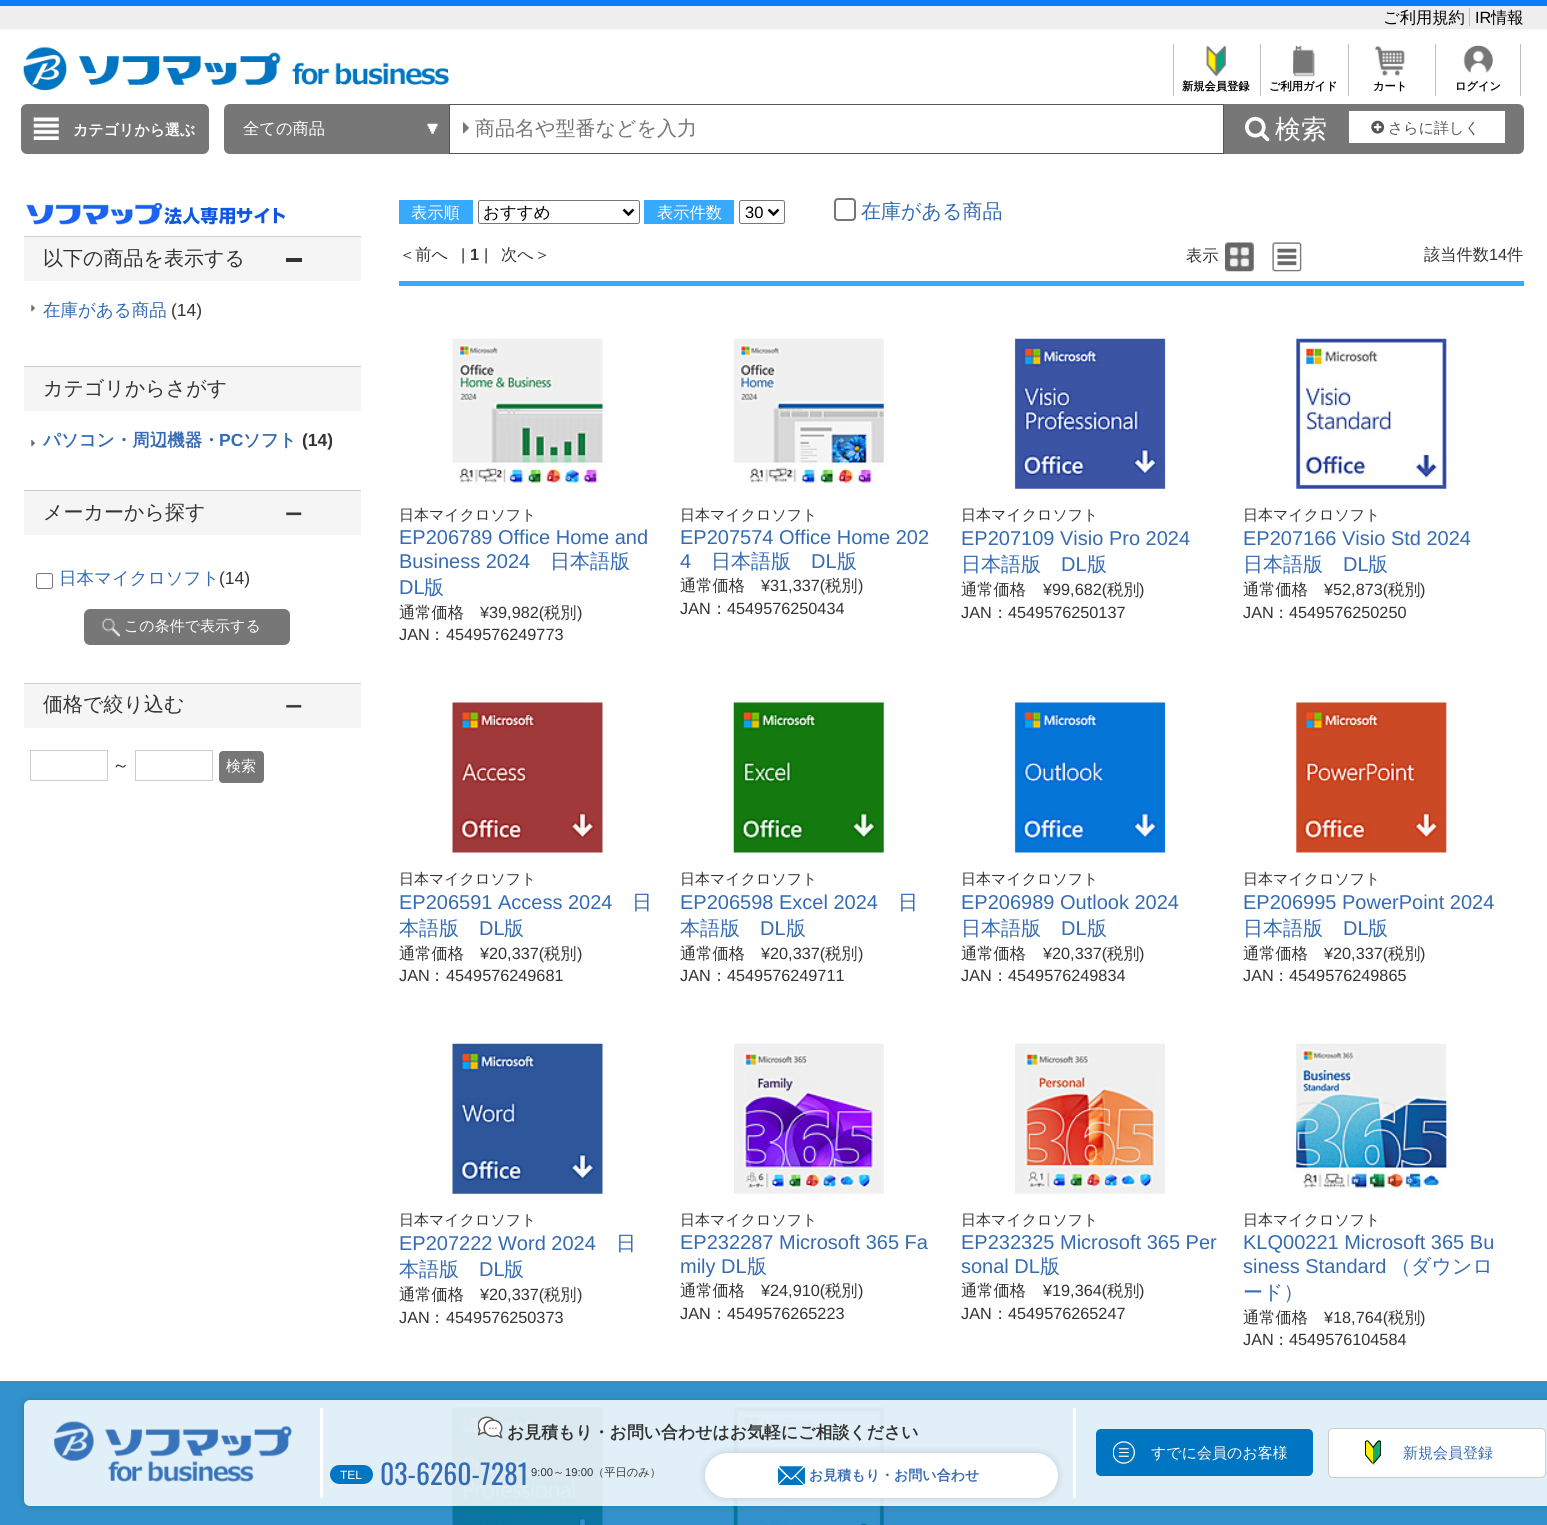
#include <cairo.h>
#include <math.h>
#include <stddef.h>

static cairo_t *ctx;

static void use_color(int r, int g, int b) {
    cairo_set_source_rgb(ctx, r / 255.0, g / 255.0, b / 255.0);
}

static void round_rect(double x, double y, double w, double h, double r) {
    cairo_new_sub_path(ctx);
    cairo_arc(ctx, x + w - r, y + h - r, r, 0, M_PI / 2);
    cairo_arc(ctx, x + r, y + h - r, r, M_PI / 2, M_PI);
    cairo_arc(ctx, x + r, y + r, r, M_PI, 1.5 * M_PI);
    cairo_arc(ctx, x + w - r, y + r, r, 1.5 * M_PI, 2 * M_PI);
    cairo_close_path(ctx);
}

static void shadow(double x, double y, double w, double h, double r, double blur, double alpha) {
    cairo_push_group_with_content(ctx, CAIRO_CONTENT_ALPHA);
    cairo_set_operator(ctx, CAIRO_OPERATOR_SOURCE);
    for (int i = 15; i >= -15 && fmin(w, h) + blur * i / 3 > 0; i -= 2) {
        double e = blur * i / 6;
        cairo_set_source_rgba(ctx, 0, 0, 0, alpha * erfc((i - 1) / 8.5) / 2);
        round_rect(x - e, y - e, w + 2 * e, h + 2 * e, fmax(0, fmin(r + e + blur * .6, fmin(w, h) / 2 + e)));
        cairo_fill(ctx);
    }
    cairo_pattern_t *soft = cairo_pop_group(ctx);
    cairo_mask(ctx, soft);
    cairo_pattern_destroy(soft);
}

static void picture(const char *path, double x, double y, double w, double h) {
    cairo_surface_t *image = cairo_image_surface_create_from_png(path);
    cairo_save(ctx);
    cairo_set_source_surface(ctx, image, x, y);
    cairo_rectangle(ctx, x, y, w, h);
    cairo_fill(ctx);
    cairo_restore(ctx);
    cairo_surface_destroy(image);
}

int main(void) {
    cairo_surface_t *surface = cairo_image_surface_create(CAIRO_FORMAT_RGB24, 1547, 1525);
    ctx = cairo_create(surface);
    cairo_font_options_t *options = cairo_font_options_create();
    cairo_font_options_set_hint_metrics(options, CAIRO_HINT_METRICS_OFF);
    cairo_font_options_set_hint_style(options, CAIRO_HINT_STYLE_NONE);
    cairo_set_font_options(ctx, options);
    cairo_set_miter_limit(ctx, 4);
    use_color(255, 255, 255);
    cairo_paint(ctx);
    use_color(51, 145, 205);
    cairo_rectangle(ctx, 0, 1381, 1547, 144);
    cairo_fill(ctx);
    use_color(8, 124, 255);
    cairo_rectangle(ctx, 0, 0, 1547, 6);
    cairo_fill(ctx);
    use_color(238, 238, 238);
    cairo_rectangle(ctx, 0, 6, 1547, 23);
    cairo_fill(ctx);
    cairo_select_font_face(ctx, "WenQuanYi Zen Hei Medium", CAIRO_FONT_SLANT_NORMAL, CAIRO_FONT_WEIGHT_NORMAL);
    cairo_set_font_size(ctx, 16.25);
    use_color(0, 0, 0);
    cairo_move_to(ctx, 1383, 23);
    cairo_show_text(ctx, "ご利用規約");
    use_color(192, 192, 192);
    cairo_rectangle(ctx, 1469, 8, 1, 18);
    cairo_fill(ctx);
    cairo_select_font_face(ctx, "Liberation Sans", CAIRO_FONT_SLANT_NORMAL, CAIRO_FONT_WEIGHT_NORMAL);
    use_color(0, 0, 0);
    cairo_move_to(ctx, 1475, 23);
    cairo_show_text(ctx, "IR");
    cairo_select_font_face(ctx, "WenQuanYi Zen Hei Medium", CAIRO_FONT_SLANT_NORMAL, CAIRO_FONT_WEIGHT_NORMAL);
    cairo_move_to(ctx, 1491, 23);
    cairo_show_text(ctx, "情報");
    picture("img1.png", 23, 47, 426, 43);
    use_color(192, 192, 192);
    cairo_rectangle(ctx, 1173, 44, 1, 52);
    cairo_fill(ctx);
    picture("img2.png", 1206, 46, 20, 31);
    cairo_select_font_face(ctx, "WenQuanYi Zen Hei", CAIRO_FONT_SLANT_NORMAL, CAIRO_FONT_WEIGHT_BOLD);
    cairo_set_font_size(ctx, 11.25);
    use_color(0, 0, 0);
    cairo_move_to(ctx, 1182, 90);
    cairo_show_text(ctx, "新規会員登録");
    use_color(192, 192, 192);
    cairo_rectangle(ctx, 1260, 44, 1, 52);
    cairo_fill(ctx);
    picture("img3.png", 1293, 45, 22, 32);
    use_color(0, 0, 0);
    cairo_move_to(ctx, 1269, 90);
    cairo_show_text(ctx, "ご利用ガイド");
    use_color(192, 192, 192);
    cairo_rectangle(ctx, 1348, 44, 1, 52);
    cairo_fill(ctx);
    picture("img4.png", 1375, 46, 30, 30);
    use_color(0, 0, 0);
    cairo_move_to(ctx, 1373, 90);
    cairo_show_text(ctx, "カート");
    use_color(192, 192, 192);
    cairo_rectangle(ctx, 1520, 44, 1, 52);
    cairo_fill(ctx);
    cairo_rectangle(ctx, 1435, 44, 1, 52);
    cairo_fill(ctx);
    picture("img5.png", 1463, 45, 30, 28);
    use_color(0, 0, 0);
    cairo_move_to(ctx, 1455, 90);
    cairo_show_text(ctx, "ログイン");
    use_color(119, 119, 119);
    round_rect(21, 104, 188, 50, 6);
    cairo_fill(ctx);
    picture("img6.png", 33, 117, 26, 23);
    cairo_set_font_size(ctx, 15);
    use_color(255, 255, 255);
    cairo_move_to(ctx, 73, 135);
    cairo_show_text(ctx, "カテゴリから選ぶ");
    use_color(119, 119, 119);
    cairo_new_path(ctx);
    cairo_move_to(ctx, 230, 104);
    cairo_line_to(ctx, 449, 104);
    cairo_line_to(ctx, 449, 154);
    cairo_line_to(ctx, 230, 154);
    cairo_curve_to(ctx, 226.5, 154, 224, 151.5, 224, 148);
    cairo_line_to(ctx, 224, 110);
    cairo_curve_to(ctx, 224, 106.5, 226.5, 104, 230, 104);
    cairo_close_path(ctx);
    cairo_fill(ctx);
    picture("img7.png", 427, 123, 11, 11);
    cairo_select_font_face(ctx, "WenQuanYi Zen Hei Medium", CAIRO_FONT_SLANT_NORMAL, CAIRO_FONT_WEIGHT_NORMAL);
    cairo_set_font_size(ctx, 16.25);
    use_color(255, 255, 255);
    cairo_move_to(ctx, 243, 134);
    cairo_show_text(ctx, "全ての商品");
    cairo_rectangle(ctx, 449.5, 104.5, 774, 49);
    use_color(85, 85, 85);
    cairo_set_line_width(ctx, 1);
    cairo_stroke(ctx);
    picture("img8.png", 463, 122, 6, 12);
    cairo_set_font_size(ctx, 20);
    use_color(117, 117, 117);
    cairo_move_to(ctx, 475, 135);
    cairo_show_text(ctx, "商品名や型番などを入力");
    use_color(119, 119, 119);
    cairo_rectangle(ctx, 1224, 104, 125, 50);
    cairo_fill(ctx);
    picture("img9.png", 1245, 116, 25, 26);
    cairo_set_font_size(ctx, 26);
    use_color(255, 255, 255);
    cairo_move_to(ctx, 1275, 138);
    cairo_show_text(ctx, "検索");
    use_color(119, 119, 119);
    cairo_new_path(ctx);
    cairo_move_to(ctx, 1349, 104);
    cairo_line_to(ctx, 1518, 104);
    cairo_curve_to(ctx, 1521.5, 104, 1524, 106.5, 1524, 110);
    cairo_line_to(ctx, 1524, 148);
    cairo_curve_to(ctx, 1524, 151.5, 1521.5, 154, 1518, 154);
    cairo_line_to(ctx, 1349, 154);
    cairo_close_path(ctx);
    cairo_fill(ctx);
    use_color(255, 255, 255);
    cairo_rectangle(ctx, 1349, 111, 156, 32);
    cairo_fill(ctx);
    picture("img10.png", 1371, 120, 14, 14);
    cairo_set_font_size(ctx, 15);
    use_color(85, 85, 85);
    cairo_move_to(ctx, 1388, 133);
    cairo_show_text(ctx, "さらに詳しく");
    picture("img11.png", 26, 203, 259, 22);
    use_color(245, 245, 245);
    cairo_rectangle(ctx, 24, 237, 337, 44);
    cairo_fill(ctx);
    use_color(51, 51, 51);
    cairo_rectangle(ctx, 286, 258, 16, 4);
    cairo_fill(ctx);
    use_color(204, 204, 204);
    cairo_rectangle(ctx, 24, 236, 337, 1);
    cairo_fill(ctx);
    cairo_set_font_size(ctx, 20);
    use_color(51, 51, 51);
    cairo_move_to(ctx, 43, 265);
    cairo_show_text(ctx, "以下の商品を表示する");
    picture("img12.png", 31, 305, 5, 7);
    cairo_set_font_size(ctx, 17.5);
    use_color(53, 107, 179);
    cairo_move_to(ctx, 43, 316);
    cairo_show_text(ctx, "在庫がある商品");
    cairo_select_font_face(ctx, "Liberation Sans", CAIRO_FONT_SLANT_NORMAL, CAIRO_FONT_WEIGHT_NORMAL);
    use_color(51, 51, 51);
    cairo_move_to(ctx, 171, 316);
    cairo_show_text(ctx, "(14)");
    use_color(245, 245, 245);
    cairo_rectangle(ctx, 24, 367, 337, 44);
    cairo_fill(ctx);
    use_color(204, 204, 204);
    cairo_rectangle(ctx, 24, 366, 337, 1);
    cairo_fill(ctx);
    cairo_select_font_face(ctx, "WenQuanYi Zen Hei Medium", CAIRO_FONT_SLANT_NORMAL, CAIRO_FONT_WEIGHT_NORMAL);
    cairo_set_font_size(ctx, 20);
    use_color(51, 51, 51);
    cairo_move_to(ctx, 43, 395);
    cairo_show_text(ctx, "カテゴリからさがす");
    picture("img12.png", 31, 440, 5, 7);
    cairo_select_font_face(ctx, "WenQuanYi Zen Hei", CAIRO_FONT_SLANT_NORMAL, CAIRO_FONT_WEIGHT_BOLD);
    cairo_set_font_size(ctx, 17.5);
    use_color(53, 107, 179);
    cairo_move_to(ctx, 43, 446);
    cairo_show_text(ctx, "パソコン・周辺機器・");
    cairo_select_font_face(ctx, "Liberation Sans", CAIRO_FONT_SLANT_NORMAL, CAIRO_FONT_WEIGHT_BOLD);
    cairo_move_to(ctx, 219, 446);
    cairo_show_text(ctx, "PC");
    cairo_select_font_face(ctx, "WenQuanYi Zen Hei", CAIRO_FONT_SLANT_NORMAL, CAIRO_FONT_WEIGHT_BOLD);
    cairo_move_to(ctx, 243, 446);
    cairo_show_text(ctx, "ソフト");
    cairo_select_font_face(ctx, "Liberation Sans", CAIRO_FONT_SLANT_NORMAL, CAIRO_FONT_WEIGHT_BOLD);
    use_color(51, 51, 51);
    cairo_move_to(ctx, 302, 446);
    cairo_show_text(ctx, "(14)");
    use_color(245, 245, 245);
    cairo_rectangle(ctx, 24, 491, 337, 44);
    cairo_fill(ctx);
    picture("img13.png", 286, 512, 16, 4);
    use_color(204, 204, 204);
    cairo_rectangle(ctx, 24, 490, 337, 1);
    cairo_fill(ctx);
    cairo_select_font_face(ctx, "WenQuanYi Zen Hei Medium", CAIRO_FONT_SLANT_NORMAL, CAIRO_FONT_WEIGHT_NORMAL);
    cairo_set_font_size(ctx, 20);
    use_color(51, 51, 51);
    cairo_move_to(ctx, 43, 519);
    cairo_show_text(ctx, "メーカーから探す");
    round_rect(36.5, 573.5, 16, 15, 2);
    use_color(118, 118, 118);
    cairo_stroke(ctx);
    cairo_set_font_size(ctx, 17.5);
    use_color(53, 107, 179);
    cairo_move_to(ctx, 59, 584);
    cairo_show_text(ctx, "日本マイクロソフト");
    cairo_select_font_face(ctx, "Liberation Sans", CAIRO_FONT_SLANT_NORMAL, CAIRO_FONT_WEIGHT_NORMAL);
    use_color(51, 51, 51);
    cairo_move_to(ctx, 219, 584);
    cairo_show_text(ctx, "(14)");
    use_color(119, 119, 119);
    round_rect(84, 609, 206, 36, 6);
    cairo_fill(ctx);
    picture("img14.png", 102, 618, 18, 19);
    cairo_select_font_face(ctx, "WenQuanYi Zen Hei Medium", CAIRO_FONT_SLANT_NORMAL, CAIRO_FONT_WEIGHT_NORMAL);
    cairo_set_font_size(ctx, 15);
    use_color(255, 255, 255);
    cairo_move_to(ctx, 124, 631);
    cairo_show_text(ctx, "この条件で表示する");
    use_color(245, 245, 245);
    cairo_rectangle(ctx, 24, 684, 337, 44);
    cairo_fill(ctx);
    picture("img15.png", 286, 704, 16, 4);
    use_color(204, 204, 204);
    cairo_rectangle(ctx, 24, 683, 337, 1);
    cairo_fill(ctx);
    cairo_set_font_size(ctx, 20);
    use_color(51, 51, 51);
    cairo_move_to(ctx, 43, 711);
    cairo_show_text(ctx, "価格で絞り込む");
    cairo_rectangle(ctx, 30.5, 750.5, 77, 30);
    use_color(204, 204, 204);
    cairo_stroke(ctx);
    cairo_set_font_size(ctx, 17.5);
    use_color(51, 51, 51);
    cairo_move_to(ctx, 112, 771);
    cairo_show_text(ctx, "～");
    cairo_rectangle(ctx, 135.5, 750.5, 77, 30);
    use_color(204, 204, 204);
    cairo_stroke(ctx);
    use_color(119, 119, 119);
    round_rect(219, 751, 45, 32, 4);
    cairo_fill(ctx);
    cairo_set_font_size(ctx, 15);
    use_color(255, 255, 255);
    cairo_move_to(ctx, 226, 771);
    cairo_show_text(ctx, "検索");
    use_color(55, 170, 255);
    cairo_rectangle(ctx, 399, 200, 74, 24);
    cairo_fill(ctx);
    cairo_set_font_size(ctx, 16.25);
    use_color(255, 255, 255);
    cairo_move_to(ctx, 411, 218);
    cairo_show_text(ctx, "表示順");
    round_rect(478.5, 200.5, 161, 23, 2);
    use_color(118, 118, 118);
    cairo_stroke(ctx);
    cairo_new_path(ctx);
    cairo_move_to(ctx, 623.5, 209.5);
    cairo_line_to(ctx, 628.5, 214.5);
    cairo_line_to(ctx, 633.5, 209.5);
    use_color(0, 0, 0);
    cairo_set_line_width(ctx, 2.5);
    cairo_stroke(ctx);
    cairo_set_font_size(ctx, 16.5);
    cairo_move_to(ctx, 483, 218);
    cairo_show_text(ctx, "おすすめ");
    use_color(55, 170, 255);
    cairo_rectangle(ctx, 644, 200, 90, 24);
    cairo_fill(ctx);
    cairo_set_font_size(ctx, 16.25);
    use_color(255, 255, 255);
    cairo_move_to(ctx, 657, 218);
    cairo_show_text(ctx, "表示件数");
    round_rect(739.5, 200.5, 45, 23, 2);
    use_color(118, 118, 118);
    cairo_set_line_width(ctx, 1);
    cairo_stroke(ctx);
    cairo_new_path(ctx);
    cairo_move_to(ctx, 768.5, 209.5);
    cairo_line_to(ctx, 773.5, 214.5);
    cairo_line_to(ctx, 778.5, 209.5);
    use_color(0, 0, 0);
    cairo_set_line_width(ctx, 2.5);
    cairo_stroke(ctx);
    cairo_select_font_face(ctx, "Liberation Sans", CAIRO_FONT_SLANT_NORMAL, CAIRO_FONT_WEIGHT_NORMAL);
    cairo_set_font_size(ctx, 16.5);
    cairo_move_to(ctx, 745, 218);
    cairo_show_text(ctx, "30");
    round_rect(835, 199, 20, 21, 3);
    use_color(118, 118, 118);
    cairo_set_line_width(ctx, 2);
    cairo_stroke(ctx);
    cairo_select_font_face(ctx, "WenQuanYi Zen Hei Medium", CAIRO_FONT_SLANT_NORMAL, CAIRO_FONT_WEIGHT_NORMAL);
    cairo_set_font_size(ctx, 20);
    use_color(53, 107, 179);
    cairo_move_to(ctx, 861, 218);
    cairo_show_text(ctx, "在庫がある商品");
    cairo_set_font_size(ctx, 16.25);
    use_color(51, 51, 51);
    cairo_move_to(ctx, 399, 260);
    cairo_show_text(ctx, "＜前へ");
    cairo_select_font_face(ctx, "Liberation Sans", CAIRO_FONT_SLANT_NORMAL, CAIRO_FONT_WEIGHT_NORMAL);
    cairo_move_to(ctx, 461, 260);
    cairo_show_text(ctx, "|");
    cairo_select_font_face(ctx, "Liberation Sans", CAIRO_FONT_SLANT_NORMAL, CAIRO_FONT_WEIGHT_BOLD);
    cairo_move_to(ctx, 470, 260);
    cairo_show_text(ctx, "1");
    cairo_select_font_face(ctx, "Liberation Sans", CAIRO_FONT_SLANT_NORMAL, CAIRO_FONT_WEIGHT_NORMAL);
    cairo_move_to(ctx, 484, 260);
    cairo_show_text(ctx, "|");
    cairo_select_font_face(ctx, "WenQuanYi Zen Hei Medium", CAIRO_FONT_SLANT_NORMAL, CAIRO_FONT_WEIGHT_NORMAL);
    cairo_move_to(ctx, 501, 260);
    cairo_show_text(ctx, "次へ＞");
    cairo_move_to(ctx, 1186, 261);
    cairo_show_text(ctx, "表示");
    picture("img16.png", 1225, 242, 29, 30);
    picture("img17.png", 1272, 242, 30, 30);
    cairo_move_to(ctx, 1424, 260);
    cairo_show_text(ctx, "該当件数");
    cairo_select_font_face(ctx, "Liberation Sans", CAIRO_FONT_SLANT_NORMAL, CAIRO_FONT_WEIGHT_NORMAL);
    cairo_move_to(ctx, 1489, 260);
    cairo_show_text(ctx, "14");
    cairo_select_font_face(ctx, "WenQuanYi Zen Hei Medium", CAIRO_FONT_SLANT_NORMAL, CAIRO_FONT_WEIGHT_NORMAL);
    cairo_move_to(ctx, 1507, 260);
    cairo_show_text(ctx, "件");
    use_color(55, 170, 255);
    cairo_rectangle(ctx, 399, 281, 1125, 5);
    cairo_fill(ctx);
    picture("img18.png", 452, 338, 154, 151);
    cairo_set_font_size(ctx, 15);
    use_color(51, 51, 51);
    cairo_move_to(ctx, 399, 520);
    cairo_show_text(ctx, "日本マイクロソフト");
    cairo_select_font_face(ctx, "Liberation Sans", CAIRO_FONT_SLANT_NORMAL, CAIRO_FONT_WEIGHT_NORMAL);
    cairo_set_font_size(ctx, 20);
    use_color(53, 107, 179);
    cairo_move_to(ctx, 399, 544);
    cairo_show_text(ctx, "EP206789 Office Home and");
    cairo_move_to(ctx, 399, 568);
    cairo_show_text(ctx, "Business 2024");
    cairo_select_font_face(ctx, "WenQuanYi Zen Hei Medium", CAIRO_FONT_SLANT_NORMAL, CAIRO_FONT_WEIGHT_NORMAL);
    cairo_move_to(ctx, 550, 568);
    cairo_show_text(ctx, "日本語版");
    cairo_select_font_face(ctx, "Liberation Sans", CAIRO_FONT_SLANT_NORMAL, CAIRO_FONT_WEIGHT_NORMAL);
    cairo_move_to(ctx, 399, 594);
    cairo_show_text(ctx, "DL");
    cairo_select_font_face(ctx, "WenQuanYi Zen Hei Medium", CAIRO_FONT_SLANT_NORMAL, CAIRO_FONT_WEIGHT_NORMAL);
    cairo_move_to(ctx, 424, 594);
    cairo_show_text(ctx, "版");
    cairo_set_font_size(ctx, 16.25);
    use_color(51, 51, 51);
    cairo_move_to(ctx, 399, 618);
    cairo_show_text(ctx, "通常価格");
    cairo_select_font_face(ctx, "Liberation Sans", CAIRO_FONT_SLANT_NORMAL, CAIRO_FONT_WEIGHT_NORMAL);
    cairo_move_to(ctx, 480, 618);
    cairo_show_text(ctx, "¥39,982(");
    cairo_select_font_face(ctx, "WenQuanYi Zen Hei Medium", CAIRO_FONT_SLANT_NORMAL, CAIRO_FONT_WEIGHT_NORMAL);
    cairo_move_to(ctx, 544, 618);
    cairo_show_text(ctx, "税別");
    cairo_select_font_face(ctx, "Liberation Sans", CAIRO_FONT_SLANT_NORMAL, CAIRO_FONT_WEIGHT_NORMAL);
    cairo_move_to(ctx, 577, 618);
    cairo_show_text(ctx, ")");
    cairo_move_to(ctx, 399, 640);
    cairo_show_text(ctx, "JAN");
    cairo_select_font_face(ctx, "WenQuanYi Zen Hei Medium", CAIRO_FONT_SLANT_NORMAL, CAIRO_FONT_WEIGHT_NORMAL);
    cairo_move_to(ctx, 429, 640);
    cairo_show_text(ctx, "：");
    cairo_select_font_face(ctx, "Liberation Sans", CAIRO_FONT_SLANT_NORMAL, CAIRO_FONT_WEIGHT_NORMAL);
    cairo_move_to(ctx, 446, 640);
    cairo_show_text(ctx, "4549576249773");
    picture("img19.png", 733, 338, 156, 151);
    cairo_select_font_face(ctx, "WenQuanYi Zen Hei Medium", CAIRO_FONT_SLANT_NORMAL, CAIRO_FONT_WEIGHT_NORMAL);
    cairo_set_font_size(ctx, 15);
    cairo_move_to(ctx, 680, 520);
    cairo_show_text(ctx, "日本マイクロソフト");
    cairo_select_font_face(ctx, "Liberation Sans", CAIRO_FONT_SLANT_NORMAL, CAIRO_FONT_WEIGHT_NORMAL);
    cairo_set_font_size(ctx, 20);
    use_color(53, 107, 179);
    cairo_move_to(ctx, 680, 544);
    cairo_show_text(ctx, "EP207574 Office Home 202");
    cairo_move_to(ctx, 680, 568);
    cairo_show_text(ctx, "4");
    cairo_select_font_face(ctx, "WenQuanYi Zen Hei Medium", CAIRO_FONT_SLANT_NORMAL, CAIRO_FONT_WEIGHT_NORMAL);
    cairo_move_to(ctx, 711, 568);
    cairo_show_text(ctx, "日本語版");
    cairo_select_font_face(ctx, "Liberation Sans", CAIRO_FONT_SLANT_NORMAL, CAIRO_FONT_WEIGHT_NORMAL);
    cairo_move_to(ctx, 811, 568);
    cairo_show_text(ctx, "DL");
    cairo_select_font_face(ctx, "WenQuanYi Zen Hei Medium", CAIRO_FONT_SLANT_NORMAL, CAIRO_FONT_WEIGHT_NORMAL);
    cairo_move_to(ctx, 837, 568);
    cairo_show_text(ctx, "版");
    cairo_set_font_size(ctx, 16.25);
    use_color(51, 51, 51);
    cairo_move_to(ctx, 680, 591);
    cairo_show_text(ctx, "通常価格");
    cairo_select_font_face(ctx, "Liberation Sans", CAIRO_FONT_SLANT_NORMAL, CAIRO_FONT_WEIGHT_NORMAL);
    cairo_move_to(ctx, 761, 591);
    cairo_show_text(ctx, "¥31,337(");
    cairo_select_font_face(ctx, "WenQuanYi Zen Hei Medium", CAIRO_FONT_SLANT_NORMAL, CAIRO_FONT_WEIGHT_NORMAL);
    cairo_move_to(ctx, 825, 591);
    cairo_show_text(ctx, "税別");
    cairo_select_font_face(ctx, "Liberation Sans", CAIRO_FONT_SLANT_NORMAL, CAIRO_FONT_WEIGHT_NORMAL);
    cairo_move_to(ctx, 858, 591);
    cairo_show_text(ctx, ")");
    cairo_move_to(ctx, 680, 614);
    cairo_show_text(ctx, "JAN");
    cairo_select_font_face(ctx, "WenQuanYi Zen Hei Medium", CAIRO_FONT_SLANT_NORMAL, CAIRO_FONT_WEIGHT_NORMAL);
    cairo_move_to(ctx, 711, 614);
    cairo_show_text(ctx, "：");
    cairo_select_font_face(ctx, "Liberation Sans", CAIRO_FONT_SLANT_NORMAL, CAIRO_FONT_WEIGHT_NORMAL);
    cairo_move_to(ctx, 727, 614);
    cairo_show_text(ctx, "4549576250434");
    picture("img20.png", 1014, 338, 152, 151);
    cairo_select_font_face(ctx, "WenQuanYi Zen Hei Medium", CAIRO_FONT_SLANT_NORMAL, CAIRO_FONT_WEIGHT_NORMAL);
    cairo_set_font_size(ctx, 15);
    cairo_move_to(ctx, 961, 520);
    cairo_show_text(ctx, "日本マイクロソフト");
    cairo_select_font_face(ctx, "Liberation Sans", CAIRO_FONT_SLANT_NORMAL, CAIRO_FONT_WEIGHT_NORMAL);
    cairo_set_font_size(ctx, 20);
    use_color(53, 107, 179);
    cairo_move_to(ctx, 961, 545);
    cairo_show_text(ctx, "EP207109 Visio Pro 2024");
    cairo_select_font_face(ctx, "WenQuanYi Zen Hei Medium", CAIRO_FONT_SLANT_NORMAL, CAIRO_FONT_WEIGHT_NORMAL);
    cairo_move_to(ctx, 961, 571);
    cairo_show_text(ctx, "日本語版");
    cairo_select_font_face(ctx, "Liberation Sans", CAIRO_FONT_SLANT_NORMAL, CAIRO_FONT_WEIGHT_NORMAL);
    cairo_move_to(ctx, 1061, 571);
    cairo_show_text(ctx, "DL");
    cairo_select_font_face(ctx, "WenQuanYi Zen Hei Medium", CAIRO_FONT_SLANT_NORMAL, CAIRO_FONT_WEIGHT_NORMAL);
    cairo_move_to(ctx, 1087, 571);
    cairo_show_text(ctx, "版");
    cairo_set_font_size(ctx, 16.25);
    use_color(51, 51, 51);
    cairo_move_to(ctx, 961, 595);
    cairo_show_text(ctx, "通常価格");
    cairo_select_font_face(ctx, "Liberation Sans", CAIRO_FONT_SLANT_NORMAL, CAIRO_FONT_WEIGHT_NORMAL);
    cairo_move_to(ctx, 1043, 595);
    cairo_show_text(ctx, "¥99,682(");
    cairo_select_font_face(ctx, "WenQuanYi Zen Hei Medium", CAIRO_FONT_SLANT_NORMAL, CAIRO_FONT_WEIGHT_NORMAL);
    cairo_move_to(ctx, 1107, 595);
    cairo_show_text(ctx, "税別");
    cairo_select_font_face(ctx, "Liberation Sans", CAIRO_FONT_SLANT_NORMAL, CAIRO_FONT_WEIGHT_NORMAL);
    cairo_move_to(ctx, 1139, 595);
    cairo_show_text(ctx, ")");
    cairo_move_to(ctx, 961, 618);
    cairo_show_text(ctx, "JAN");
    cairo_select_font_face(ctx, "WenQuanYi Zen Hei Medium", CAIRO_FONT_SLANT_NORMAL, CAIRO_FONT_WEIGHT_NORMAL);
    cairo_move_to(ctx, 992, 618);
    cairo_show_text(ctx, "：");
    cairo_select_font_face(ctx, "Liberation Sans", CAIRO_FONT_SLANT_NORMAL, CAIRO_FONT_WEIGHT_NORMAL);
    cairo_move_to(ctx, 1008, 618);
    cairo_show_text(ctx, "4549576250137");
    picture("img21.png", 1293, 338, 157, 151);
    cairo_select_font_face(ctx, "WenQuanYi Zen Hei Medium", CAIRO_FONT_SLANT_NORMAL, CAIRO_FONT_WEIGHT_NORMAL);
    cairo_set_font_size(ctx, 15);
    cairo_move_to(ctx, 1243, 520);
    cairo_show_text(ctx, "日本マイクロソフト");
    cairo_select_font_face(ctx, "Liberation Sans", CAIRO_FONT_SLANT_NORMAL, CAIRO_FONT_WEIGHT_NORMAL);
    cairo_set_font_size(ctx, 20);
    use_color(53, 107, 179);
    cairo_move_to(ctx, 1243, 545);
    cairo_show_text(ctx, "EP207166 Visio Std 2024");
    cairo_select_font_face(ctx, "WenQuanYi Zen Hei Medium", CAIRO_FONT_SLANT_NORMAL, CAIRO_FONT_WEIGHT_NORMAL);
    cairo_move_to(ctx, 1243, 571);
    cairo_show_text(ctx, "日本語版");
    cairo_select_font_face(ctx, "Liberation Sans", CAIRO_FONT_SLANT_NORMAL, CAIRO_FONT_WEIGHT_NORMAL);
    cairo_move_to(ctx, 1343, 571);
    cairo_show_text(ctx, "DL");
    cairo_select_font_face(ctx, "WenQuanYi Zen Hei Medium", CAIRO_FONT_SLANT_NORMAL, CAIRO_FONT_WEIGHT_NORMAL);
    cairo_move_to(ctx, 1368, 571);
    cairo_show_text(ctx, "版");
    cairo_set_font_size(ctx, 16.25);
    use_color(51, 51, 51);
    cairo_move_to(ctx, 1243, 595);
    cairo_show_text(ctx, "通常価格");
    cairo_select_font_face(ctx, "Liberation Sans", CAIRO_FONT_SLANT_NORMAL, CAIRO_FONT_WEIGHT_NORMAL);
    cairo_move_to(ctx, 1324, 595);
    cairo_show_text(ctx, "¥52,873(");
    cairo_select_font_face(ctx, "WenQuanYi Zen Hei Medium", CAIRO_FONT_SLANT_NORMAL, CAIRO_FONT_WEIGHT_NORMAL);
    cairo_move_to(ctx, 1388, 595);
    cairo_show_text(ctx, "税別");
    cairo_select_font_face(ctx, "Liberation Sans", CAIRO_FONT_SLANT_NORMAL, CAIRO_FONT_WEIGHT_NORMAL);
    cairo_move_to(ctx, 1420, 595);
    cairo_show_text(ctx, ")");
    cairo_move_to(ctx, 1243, 618);
    cairo_show_text(ctx, "JAN");
    cairo_select_font_face(ctx, "WenQuanYi Zen Hei Medium", CAIRO_FONT_SLANT_NORMAL, CAIRO_FONT_WEIGHT_NORMAL);
    cairo_move_to(ctx, 1273, 618);
    cairo_show_text(ctx, "：");
    cairo_select_font_face(ctx, "Liberation Sans", CAIRO_FONT_SLANT_NORMAL, CAIRO_FONT_WEIGHT_NORMAL);
    cairo_move_to(ctx, 1289, 618);
    cairo_show_text(ctx, "4549576250250");
    picture("img22.png", 452, 702, 151, 151);
    cairo_select_font_face(ctx, "WenQuanYi Zen Hei Medium", CAIRO_FONT_SLANT_NORMAL, CAIRO_FONT_WEIGHT_NORMAL);
    cairo_set_font_size(ctx, 15);
    cairo_move_to(ctx, 399, 884);
    cairo_show_text(ctx, "日本マイクロソフト");
    cairo_select_font_face(ctx, "Liberation Sans", CAIRO_FONT_SLANT_NORMAL, CAIRO_FONT_WEIGHT_NORMAL);
    cairo_set_font_size(ctx, 20);
    use_color(53, 107, 179);
    cairo_move_to(ctx, 399, 909);
    cairo_show_text(ctx, "EP206591 Access 2024");
    cairo_select_font_face(ctx, "WenQuanYi Zen Hei Medium", CAIRO_FONT_SLANT_NORMAL, CAIRO_FONT_WEIGHT_NORMAL);
    cairo_move_to(ctx, 632, 909);
    cairo_show_text(ctx, "日");
    cairo_move_to(ctx, 399, 935);
    cairo_show_text(ctx, "本語版");
    cairo_select_font_face(ctx, "Liberation Sans", CAIRO_FONT_SLANT_NORMAL, CAIRO_FONT_WEIGHT_NORMAL);
    cairo_move_to(ctx, 479, 935);
    cairo_show_text(ctx, "DL");
    cairo_select_font_face(ctx, "WenQuanYi Zen Hei Medium", CAIRO_FONT_SLANT_NORMAL, CAIRO_FONT_WEIGHT_NORMAL);
    cairo_move_to(ctx, 504, 935);
    cairo_show_text(ctx, "版");
    cairo_set_font_size(ctx, 16.25);
    use_color(51, 51, 51);
    cairo_move_to(ctx, 399, 959);
    cairo_show_text(ctx, "通常価格");
    cairo_select_font_face(ctx, "Liberation Sans", CAIRO_FONT_SLANT_NORMAL, CAIRO_FONT_WEIGHT_NORMAL);
    cairo_move_to(ctx, 480, 959);
    cairo_show_text(ctx, "¥20,337(");
    cairo_select_font_face(ctx, "WenQuanYi Zen Hei Medium", CAIRO_FONT_SLANT_NORMAL, CAIRO_FONT_WEIGHT_NORMAL);
    cairo_move_to(ctx, 544, 959);
    cairo_show_text(ctx, "税別");
    cairo_select_font_face(ctx, "Liberation Sans", CAIRO_FONT_SLANT_NORMAL, CAIRO_FONT_WEIGHT_NORMAL);
    cairo_move_to(ctx, 577, 959);
    cairo_show_text(ctx, ")");
    cairo_move_to(ctx, 399, 981);
    cairo_show_text(ctx, "JAN");
    cairo_select_font_face(ctx, "WenQuanYi Zen Hei Medium", CAIRO_FONT_SLANT_NORMAL, CAIRO_FONT_WEIGHT_NORMAL);
    cairo_move_to(ctx, 429, 981);
    cairo_show_text(ctx, "：");
    cairo_select_font_face(ctx, "Liberation Sans", CAIRO_FONT_SLANT_NORMAL, CAIRO_FONT_WEIGHT_NORMAL);
    cairo_move_to(ctx, 446, 981);
    cairo_show_text(ctx, "4549576249681");
    picture("img23.png", 733, 702, 151, 151);
    cairo_select_font_face(ctx, "WenQuanYi Zen Hei Medium", CAIRO_FONT_SLANT_NORMAL, CAIRO_FONT_WEIGHT_NORMAL);
    cairo_set_font_size(ctx, 15);
    cairo_move_to(ctx, 680, 884);
    cairo_show_text(ctx, "日本マイクロソフト");
    cairo_select_font_face(ctx, "Liberation Sans", CAIRO_FONT_SLANT_NORMAL, CAIRO_FONT_WEIGHT_NORMAL);
    cairo_set_font_size(ctx, 20);
    use_color(53, 107, 179);
    cairo_move_to(ctx, 680, 909);
    cairo_show_text(ctx, "EP206598 Excel 2024");
    cairo_select_font_face(ctx, "WenQuanYi Zen Hei Medium", CAIRO_FONT_SLANT_NORMAL, CAIRO_FONT_WEIGHT_NORMAL);
    cairo_move_to(ctx, 898, 909);
    cairo_show_text(ctx, "日");
    cairo_move_to(ctx, 680, 935);
    cairo_show_text(ctx, "本語版");
    cairo_select_font_face(ctx, "Liberation Sans", CAIRO_FONT_SLANT_NORMAL, CAIRO_FONT_WEIGHT_NORMAL);
    cairo_move_to(ctx, 760, 935);
    cairo_show_text(ctx, "DL");
    cairo_select_font_face(ctx, "WenQuanYi Zen Hei Medium", CAIRO_FONT_SLANT_NORMAL, CAIRO_FONT_WEIGHT_NORMAL);
    cairo_move_to(ctx, 786, 935);
    cairo_show_text(ctx, "版");
    cairo_set_font_size(ctx, 16.25);
    use_color(51, 51, 51);
    cairo_move_to(ctx, 680, 959);
    cairo_show_text(ctx, "通常価格");
    cairo_select_font_face(ctx, "Liberation Sans", CAIRO_FONT_SLANT_NORMAL, CAIRO_FONT_WEIGHT_NORMAL);
    cairo_move_to(ctx, 761, 959);
    cairo_show_text(ctx, "¥20,337(");
    cairo_select_font_face(ctx, "WenQuanYi Zen Hei Medium", CAIRO_FONT_SLANT_NORMAL, CAIRO_FONT_WEIGHT_NORMAL);
    cairo_move_to(ctx, 825, 959);
    cairo_show_text(ctx, "税別");
    cairo_select_font_face(ctx, "Liberation Sans", CAIRO_FONT_SLANT_NORMAL, CAIRO_FONT_WEIGHT_NORMAL);
    cairo_move_to(ctx, 858, 959);
    cairo_show_text(ctx, ")");
    cairo_move_to(ctx, 680, 981);
    cairo_show_text(ctx, "JAN");
    cairo_select_font_face(ctx, "WenQuanYi Zen Hei Medium", CAIRO_FONT_SLANT_NORMAL, CAIRO_FONT_WEIGHT_NORMAL);
    cairo_move_to(ctx, 711, 981);
    cairo_show_text(ctx, "：");
    cairo_select_font_face(ctx, "Liberation Sans", CAIRO_FONT_SLANT_NORMAL, CAIRO_FONT_WEIGHT_NORMAL);
    cairo_move_to(ctx, 727, 981);
    cairo_show_text(ctx, "4549576249711");
    picture("img24.png", 1014, 702, 152, 151);
    cairo_select_font_face(ctx, "WenQuanYi Zen Hei Medium", CAIRO_FONT_SLANT_NORMAL, CAIRO_FONT_WEIGHT_NORMAL);
    cairo_set_font_size(ctx, 15);
    cairo_move_to(ctx, 961, 884);
    cairo_show_text(ctx, "日本マイクロソフト");
    cairo_select_font_face(ctx, "Liberation Sans", CAIRO_FONT_SLANT_NORMAL, CAIRO_FONT_WEIGHT_NORMAL);
    cairo_set_font_size(ctx, 20);
    use_color(53, 107, 179);
    cairo_move_to(ctx, 961, 909);
    cairo_show_text(ctx, "EP206989 Outlook 2024");
    cairo_select_font_face(ctx, "WenQuanYi Zen Hei Medium", CAIRO_FONT_SLANT_NORMAL, CAIRO_FONT_WEIGHT_NORMAL);
    cairo_move_to(ctx, 961, 935);
    cairo_show_text(ctx, "日本語版");
    cairo_select_font_face(ctx, "Liberation Sans", CAIRO_FONT_SLANT_NORMAL, CAIRO_FONT_WEIGHT_NORMAL);
    cairo_move_to(ctx, 1061, 935);
    cairo_show_text(ctx, "DL");
    cairo_select_font_face(ctx, "WenQuanYi Zen Hei Medium", CAIRO_FONT_SLANT_NORMAL, CAIRO_FONT_WEIGHT_NORMAL);
    cairo_move_to(ctx, 1087, 935);
    cairo_show_text(ctx, "版");
    cairo_set_font_size(ctx, 16.25);
    use_color(51, 51, 51);
    cairo_move_to(ctx, 961, 959);
    cairo_show_text(ctx, "通常価格");
    cairo_select_font_face(ctx, "Liberation Sans", CAIRO_FONT_SLANT_NORMAL, CAIRO_FONT_WEIGHT_NORMAL);
    cairo_move_to(ctx, 1043, 959);
    cairo_show_text(ctx, "¥20,337(");
    cairo_select_font_face(ctx, "WenQuanYi Zen Hei Medium", CAIRO_FONT_SLANT_NORMAL, CAIRO_FONT_WEIGHT_NORMAL);
    cairo_move_to(ctx, 1107, 959);
    cairo_show_text(ctx, "税別");
    cairo_select_font_face(ctx, "Liberation Sans", CAIRO_FONT_SLANT_NORMAL, CAIRO_FONT_WEIGHT_NORMAL);
    cairo_move_to(ctx, 1139, 959);
    cairo_show_text(ctx, ")");
    cairo_move_to(ctx, 961, 981);
    cairo_show_text(ctx, "JAN");
    cairo_select_font_face(ctx, "WenQuanYi Zen Hei Medium", CAIRO_FONT_SLANT_NORMAL, CAIRO_FONT_WEIGHT_NORMAL);
    cairo_move_to(ctx, 992, 981);
    cairo_show_text(ctx, "：");
    cairo_select_font_face(ctx, "Liberation Sans", CAIRO_FONT_SLANT_NORMAL, CAIRO_FONT_WEIGHT_NORMAL);
    cairo_move_to(ctx, 1008, 981);
    cairo_show_text(ctx, "4549576249834");
    picture("img25.png", 1296, 702, 151, 151);
    cairo_select_font_face(ctx, "WenQuanYi Zen Hei Medium", CAIRO_FONT_SLANT_NORMAL, CAIRO_FONT_WEIGHT_NORMAL);
    cairo_set_font_size(ctx, 15);
    cairo_move_to(ctx, 1243, 884);
    cairo_show_text(ctx, "日本マイクロソフト");
    cairo_select_font_face(ctx, "Liberation Sans", CAIRO_FONT_SLANT_NORMAL, CAIRO_FONT_WEIGHT_NORMAL);
    cairo_set_font_size(ctx, 20);
    use_color(53, 107, 179);
    cairo_move_to(ctx, 1243, 909);
    cairo_show_text(ctx, "EP206995 PowerPoint 2024");
    cairo_select_font_face(ctx, "WenQuanYi Zen Hei Medium", CAIRO_FONT_SLANT_NORMAL, CAIRO_FONT_WEIGHT_NORMAL);
    cairo_move_to(ctx, 1243, 935);
    cairo_show_text(ctx, "日本語版");
    cairo_select_font_face(ctx, "Liberation Sans", CAIRO_FONT_SLANT_NORMAL, CAIRO_FONT_WEIGHT_NORMAL);
    cairo_move_to(ctx, 1343, 935);
    cairo_show_text(ctx, "DL");
    cairo_select_font_face(ctx, "WenQuanYi Zen Hei Medium", CAIRO_FONT_SLANT_NORMAL, CAIRO_FONT_WEIGHT_NORMAL);
    cairo_move_to(ctx, 1368, 935);
    cairo_show_text(ctx, "版");
    cairo_set_font_size(ctx, 16.25);
    use_color(51, 51, 51);
    cairo_move_to(ctx, 1243, 959);
    cairo_show_text(ctx, "通常価格");
    cairo_select_font_face(ctx, "Liberation Sans", CAIRO_FONT_SLANT_NORMAL, CAIRO_FONT_WEIGHT_NORMAL);
    cairo_move_to(ctx, 1324, 959);
    cairo_show_text(ctx, "¥20,337(");
    cairo_select_font_face(ctx, "WenQuanYi Zen Hei Medium", CAIRO_FONT_SLANT_NORMAL, CAIRO_FONT_WEIGHT_NORMAL);
    cairo_move_to(ctx, 1388, 959);
    cairo_show_text(ctx, "税別");
    cairo_select_font_face(ctx, "Liberation Sans", CAIRO_FONT_SLANT_NORMAL, CAIRO_FONT_WEIGHT_NORMAL);
    cairo_move_to(ctx, 1420, 959);
    cairo_show_text(ctx, ")");
    cairo_move_to(ctx, 1243, 981);
    cairo_show_text(ctx, "JAN");
    cairo_select_font_face(ctx, "WenQuanYi Zen Hei Medium", CAIRO_FONT_SLANT_NORMAL, CAIRO_FONT_WEIGHT_NORMAL);
    cairo_move_to(ctx, 1273, 981);
    cairo_show_text(ctx, "：");
    cairo_select_font_face(ctx, "Liberation Sans", CAIRO_FONT_SLANT_NORMAL, CAIRO_FONT_WEIGHT_NORMAL);
    cairo_move_to(ctx, 1289, 981);
    cairo_show_text(ctx, "4549576249865");
    picture("img26.png", 452, 1043, 151, 151);
    cairo_select_font_face(ctx, "WenQuanYi Zen Hei Medium", CAIRO_FONT_SLANT_NORMAL, CAIRO_FONT_WEIGHT_NORMAL);
    cairo_set_font_size(ctx, 15);
    cairo_move_to(ctx, 399, 1225);
    cairo_show_text(ctx, "日本マイクロソフト");
    cairo_select_font_face(ctx, "Liberation Sans", CAIRO_FONT_SLANT_NORMAL, CAIRO_FONT_WEIGHT_NORMAL);
    cairo_set_font_size(ctx, 20);
    use_color(53, 107, 179);
    cairo_move_to(ctx, 399, 1250);
    cairo_show_text(ctx, "EP207222 Word 2024");
    cairo_select_font_face(ctx, "WenQuanYi Zen Hei Medium", CAIRO_FONT_SLANT_NORMAL, CAIRO_FONT_WEIGHT_NORMAL);
    cairo_move_to(ctx, 616, 1250);
    cairo_show_text(ctx, "日");
    cairo_move_to(ctx, 399, 1276);
    cairo_show_text(ctx, "本語版");
    cairo_select_font_face(ctx, "Liberation Sans", CAIRO_FONT_SLANT_NORMAL, CAIRO_FONT_WEIGHT_NORMAL);
    cairo_move_to(ctx, 479, 1276);
    cairo_show_text(ctx, "DL");
    cairo_select_font_face(ctx, "WenQuanYi Zen Hei Medium", CAIRO_FONT_SLANT_NORMAL, CAIRO_FONT_WEIGHT_NORMAL);
    cairo_move_to(ctx, 504, 1276);
    cairo_show_text(ctx, "版");
    cairo_set_font_size(ctx, 16.25);
    use_color(51, 51, 51);
    cairo_move_to(ctx, 399, 1300);
    cairo_show_text(ctx, "通常価格");
    cairo_select_font_face(ctx, "Liberation Sans", CAIRO_FONT_SLANT_NORMAL, CAIRO_FONT_WEIGHT_NORMAL);
    cairo_move_to(ctx, 480, 1300);
    cairo_show_text(ctx, "¥20,337(");
    cairo_select_font_face(ctx, "WenQuanYi Zen Hei Medium", CAIRO_FONT_SLANT_NORMAL, CAIRO_FONT_WEIGHT_NORMAL);
    cairo_move_to(ctx, 544, 1300);
    cairo_show_text(ctx, "税別");
    cairo_select_font_face(ctx, "Liberation Sans", CAIRO_FONT_SLANT_NORMAL, CAIRO_FONT_WEIGHT_NORMAL);
    cairo_move_to(ctx, 577, 1300);
    cairo_show_text(ctx, ")");
    cairo_move_to(ctx, 399, 1323);
    cairo_show_text(ctx, "JAN");
    cairo_select_font_face(ctx, "WenQuanYi Zen Hei Medium", CAIRO_FONT_SLANT_NORMAL, CAIRO_FONT_WEIGHT_NORMAL);
    cairo_move_to(ctx, 429, 1323);
    cairo_show_text(ctx, "：");
    cairo_select_font_face(ctx, "Liberation Sans", CAIRO_FONT_SLANT_NORMAL, CAIRO_FONT_WEIGHT_NORMAL);
    cairo_move_to(ctx, 446, 1323);
    cairo_show_text(ctx, "4549576250373");
    picture("img27.png", 734, 1043, 150, 151);
    cairo_select_font_face(ctx, "WenQuanYi Zen Hei Medium", CAIRO_FONT_SLANT_NORMAL, CAIRO_FONT_WEIGHT_NORMAL);
    cairo_set_font_size(ctx, 15);
    cairo_move_to(ctx, 680, 1225);
    cairo_show_text(ctx, "日本マイクロソフト");
    cairo_select_font_face(ctx, "Liberation Sans", CAIRO_FONT_SLANT_NORMAL, CAIRO_FONT_WEIGHT_NORMAL);
    cairo_set_font_size(ctx, 20);
    use_color(53, 107, 179);
    cairo_move_to(ctx, 680, 1249);
    cairo_show_text(ctx, "EP232287 Microsoft 365 Fa");
    cairo_move_to(ctx, 680, 1273);
    cairo_show_text(ctx, "mily DL");
    cairo_select_font_face(ctx, "WenQuanYi Zen Hei Medium", CAIRO_FONT_SLANT_NORMAL, CAIRO_FONT_WEIGHT_NORMAL);
    cairo_move_to(ctx, 747, 1273);
    cairo_show_text(ctx, "版");
    cairo_set_font_size(ctx, 16.25);
    use_color(51, 51, 51);
    cairo_move_to(ctx, 680, 1296);
    cairo_show_text(ctx, "通常価格");
    cairo_select_font_face(ctx, "Liberation Sans", CAIRO_FONT_SLANT_NORMAL, CAIRO_FONT_WEIGHT_NORMAL);
    cairo_move_to(ctx, 761, 1296);
    cairo_show_text(ctx, "¥24,910(");
    cairo_select_font_face(ctx, "WenQuanYi Zen Hei Medium", CAIRO_FONT_SLANT_NORMAL, CAIRO_FONT_WEIGHT_NORMAL);
    cairo_move_to(ctx, 825, 1296);
    cairo_show_text(ctx, "税別");
    cairo_select_font_face(ctx, "Liberation Sans", CAIRO_FONT_SLANT_NORMAL, CAIRO_FONT_WEIGHT_NORMAL);
    cairo_move_to(ctx, 858, 1296);
    cairo_show_text(ctx, ")");
    cairo_move_to(ctx, 680, 1319);
    cairo_show_text(ctx, "JAN");
    cairo_select_font_face(ctx, "WenQuanYi Zen Hei Medium", CAIRO_FONT_SLANT_NORMAL, CAIRO_FONT_WEIGHT_NORMAL);
    cairo_move_to(ctx, 711, 1319);
    cairo_show_text(ctx, "：");
    cairo_select_font_face(ctx, "Liberation Sans", CAIRO_FONT_SLANT_NORMAL, CAIRO_FONT_WEIGHT_NORMAL);
    cairo_move_to(ctx, 727, 1319);
    cairo_show_text(ctx, "4549576265223");
    picture("img28.png", 1015, 1043, 150, 151);
    cairo_select_font_face(ctx, "WenQuanYi Zen Hei Medium", CAIRO_FONT_SLANT_NORMAL, CAIRO_FONT_WEIGHT_NORMAL);
    cairo_set_font_size(ctx, 15);
    cairo_move_to(ctx, 961, 1225);
    cairo_show_text(ctx, "日本マイクロソフト");
    cairo_select_font_face(ctx, "Liberation Sans", CAIRO_FONT_SLANT_NORMAL, CAIRO_FONT_WEIGHT_NORMAL);
    cairo_set_font_size(ctx, 20);
    use_color(53, 107, 179);
    cairo_move_to(ctx, 961, 1249);
    cairo_show_text(ctx, "EP232325 Microsoft 365 Per");
    cairo_move_to(ctx, 961, 1273);
    cairo_show_text(ctx, "sonal DL");
    cairo_select_font_face(ctx, "WenQuanYi Zen Hei Medium", CAIRO_FONT_SLANT_NORMAL, CAIRO_FONT_WEIGHT_NORMAL);
    cairo_move_to(ctx, 1040, 1273);
    cairo_show_text(ctx, "版");
    cairo_set_font_size(ctx, 16.25);
    use_color(51, 51, 51);
    cairo_move_to(ctx, 961, 1296);
    cairo_show_text(ctx, "通常価格");
    cairo_select_font_face(ctx, "Liberation Sans", CAIRO_FONT_SLANT_NORMAL, CAIRO_FONT_WEIGHT_NORMAL);
    cairo_move_to(ctx, 1043, 1296);
    cairo_show_text(ctx, "¥19,364(");
    cairo_select_font_face(ctx, "WenQuanYi Zen Hei Medium", CAIRO_FONT_SLANT_NORMAL, CAIRO_FONT_WEIGHT_NORMAL);
    cairo_move_to(ctx, 1107, 1296);
    cairo_show_text(ctx, "税別");
    cairo_select_font_face(ctx, "Liberation Sans", CAIRO_FONT_SLANT_NORMAL, CAIRO_FONT_WEIGHT_NORMAL);
    cairo_move_to(ctx, 1139, 1296);
    cairo_show_text(ctx, ")");
    cairo_move_to(ctx, 961, 1319);
    cairo_show_text(ctx, "JAN");
    cairo_select_font_face(ctx, "WenQuanYi Zen Hei Medium", CAIRO_FONT_SLANT_NORMAL, CAIRO_FONT_WEIGHT_NORMAL);
    cairo_move_to(ctx, 992, 1319);
    cairo_show_text(ctx, "：");
    cairo_select_font_face(ctx, "Liberation Sans", CAIRO_FONT_SLANT_NORMAL, CAIRO_FONT_WEIGHT_NORMAL);
    cairo_move_to(ctx, 1008, 1319);
    cairo_show_text(ctx, "4549576265247");
    picture("img29.png", 1291, 1043, 160, 151);
    cairo_select_font_face(ctx, "WenQuanYi Zen Hei Medium", CAIRO_FONT_SLANT_NORMAL, CAIRO_FONT_WEIGHT_NORMAL);
    cairo_set_font_size(ctx, 15);
    cairo_move_to(ctx, 1243, 1225);
    cairo_show_text(ctx, "日本マイクロソフト");
    cairo_select_font_face(ctx, "Liberation Sans", CAIRO_FONT_SLANT_NORMAL, CAIRO_FONT_WEIGHT_NORMAL);
    cairo_set_font_size(ctx, 20);
    use_color(53, 107, 179);
    cairo_move_to(ctx, 1243, 1249);
    cairo_show_text(ctx, "KLQ00221 Microsoft 365 Bu");
    cairo_move_to(ctx, 1243, 1273);
    cairo_show_text(ctx, "siness Standard");
    cairo_select_font_face(ctx, "WenQuanYi Zen Hei Medium", CAIRO_FONT_SLANT_NORMAL, CAIRO_FONT_WEIGHT_NORMAL);
    cairo_move_to(ctx, 1391, 1273);
    cairo_show_text(ctx, "（ダウンロ");
    cairo_move_to(ctx, 1243, 1299);
    cairo_show_text(ctx, "ード）");
    cairo_set_font_size(ctx, 16.25);
    use_color(51, 51, 51);
    cairo_move_to(ctx, 1243, 1323);
    cairo_show_text(ctx, "通常価格");
    cairo_select_font_face(ctx, "Liberation Sans", CAIRO_FONT_SLANT_NORMAL, CAIRO_FONT_WEIGHT_NORMAL);
    cairo_move_to(ctx, 1324, 1323);
    cairo_show_text(ctx, "¥18,764(");
    cairo_select_font_face(ctx, "WenQuanYi Zen Hei Medium", CAIRO_FONT_SLANT_NORMAL, CAIRO_FONT_WEIGHT_NORMAL);
    cairo_move_to(ctx, 1388, 1323);
    cairo_show_text(ctx, "税別");
    cairo_select_font_face(ctx, "Liberation Sans", CAIRO_FONT_SLANT_NORMAL, CAIRO_FONT_WEIGHT_NORMAL);
    cairo_move_to(ctx, 1420, 1323);
    cairo_show_text(ctx, ")");
    cairo_move_to(ctx, 1243, 1345);
    cairo_show_text(ctx, "JAN");
    cairo_select_font_face(ctx, "WenQuanYi Zen Hei Medium", CAIRO_FONT_SLANT_NORMAL, CAIRO_FONT_WEIGHT_NORMAL);
    cairo_move_to(ctx, 1273, 1345);
    cairo_show_text(ctx, "：");
    cairo_select_font_face(ctx, "Liberation Sans", CAIRO_FONT_SLANT_NORMAL, CAIRO_FONT_WEIGHT_NORMAL);
    cairo_move_to(ctx, 1289, 1345);
    cairo_show_text(ctx, "4549576104584");
    picture("img30.png", 452, 1407, 151, 118);
    picture("img31.png", 730, 1407, 157, 118);
    cairo_save(ctx);
    cairo_set_fill_rule(ctx, CAIRO_FILL_RULE_EVEN_ODD);
    cairo_new_path(ctx);
    cairo_move_to(ctx, 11, 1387);
    cairo_line_to(ctx, 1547, 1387);
    cairo_line_to(ctx, 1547, 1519);
    cairo_line_to(ctx, 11, 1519);
    cairo_close_path(ctx);
    cairo_move_to(ctx, 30, 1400);
    cairo_line_to(ctx, 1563, 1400);
    cairo_curve_to(ctx, 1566.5, 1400, 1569, 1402.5, 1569, 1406);
    cairo_line_to(ctx, 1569, 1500);
    cairo_curve_to(ctx, 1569, 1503.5, 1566.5, 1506, 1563, 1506);
    cairo_line_to(ctx, 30, 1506);
    cairo_curve_to(ctx, 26.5, 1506, 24, 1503.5, 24, 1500);
    cairo_line_to(ctx, 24, 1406);
    cairo_curve_to(ctx, 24, 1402.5, 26.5, 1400, 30, 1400);
    cairo_close_path(ctx);
    cairo_clip(ctx);
    use_color(0, 0, 0);
    shadow(24, 1400, 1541, 106, 6, 4, 0.15);
    cairo_restore(ctx);
    cairo_set_source_rgba(ctx, 1, 1, 1, 0.85);
    round_rect(24, 1400, 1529, 106, 6);
    cairo_fill(ctx);
    picture("img32.png", 54, 1421, 238, 61);
    use_color(255, 255, 255);
    cairo_rectangle(ctx, 1073, 1408, 3, 90);
    cairo_fill(ctx);
    cairo_rectangle(ctx, 320, 1408, 3, 90);
    cairo_fill(ctx);
    picture("img33.png", 478, 1416, 25, 23);
    cairo_select_font_face(ctx, "WenQuanYi Zen Hei", CAIRO_FONT_SLANT_NORMAL, CAIRO_FONT_WEIGHT_BOLD);
    cairo_set_font_size(ctx, 16.9);
    use_color(51, 51, 51);
    cairo_move_to(ctx, 507, 1438);
    cairo_show_text(ctx, "お見積もり・お問い合わせはお気軽にご相談ください");
    use_color(0, 117, 193);
    round_rect(330, 1465, 43, 19, 9.5);
    cairo_fill(ctx);
    cairo_select_font_face(ctx, "Liberation Sans", CAIRO_FONT_SLANT_NORMAL, CAIRO_FONT_WEIGHT_NORMAL);
    cairo_set_font_size(ctx, 12);
    use_color(255, 255, 255);
    cairo_move_to(ctx, 340, 1479);
    cairo_show_text(ctx, "TEL");
    cairo_select_font_face(ctx, "Oswald", CAIRO_FONT_SLANT_NORMAL, CAIRO_FONT_WEIGHT_NORMAL);
    cairo_set_font_size(ctx, 27.75);
    use_color(53, 107, 179);
    cairo_move_to(ctx, 380, 1485);
    cairo_show_text(ctx, "03-6260-7281");
    cairo_select_font_face(ctx, "Liberation Sans", CAIRO_FONT_SLANT_NORMAL, CAIRO_FONT_WEIGHT_NORMAL);
    cairo_set_font_size(ctx, 11.25);
    use_color(51, 51, 51);
    cairo_move_to(ctx, 531, 1476);
    cairo_show_text(ctx, "9:00");
    cairo_select_font_face(ctx, "WenQuanYi Zen Hei Medium", CAIRO_FONT_SLANT_NORMAL, CAIRO_FONT_WEIGHT_NORMAL);
    cairo_move_to(ctx, 553, 1476);
    cairo_show_text(ctx, "～");
    cairo_select_font_face(ctx, "Liberation Sans", CAIRO_FONT_SLANT_NORMAL, CAIRO_FONT_WEIGHT_NORMAL);
    cairo_move_to(ctx, 565, 1476);
    cairo_show_text(ctx, "19:00");
    cairo_select_font_face(ctx, "WenQuanYi Zen Hei Medium", CAIRO_FONT_SLANT_NORMAL, CAIRO_FONT_WEIGHT_NORMAL);
    cairo_move_to(ctx, 593, 1476);
    cairo_show_text(ctx, "（平日のみ）");
    use_color(0, 0, 0);
    shadow(705, 1453, 353, 45, 22.5, 4, 0.15);
    use_color(255, 255, 255);
    round_rect(705, 1453, 353, 45, 22.5);
    cairo_fill(ctx);
    picture("img34.png", 778, 1466, 27, 19);
    cairo_select_font_face(ctx, "WenQuanYi Zen Hei", CAIRO_FONT_SLANT_NORMAL, CAIRO_FONT_WEIGHT_BOLD);
    cairo_set_font_size(ctx, 14);
    use_color(53, 107, 179);
    cairo_move_to(ctx, 809, 1480);
    cairo_show_text(ctx, "お見積もり・お問い合わせ");
    use_color(0, 117, 193);
    round_rect(1096, 1429, 217, 47, 5);
    cairo_fill(ctx);
    picture("img35.png", 1113, 1441, 22, 23);
    cairo_select_font_face(ctx, "WenQuanYi Zen Hei Medium", CAIRO_FONT_SLANT_NORMAL, CAIRO_FONT_WEIGHT_NORMAL);
    cairo_set_font_size(ctx, 15);
    use_color(255, 255, 255);
    cairo_move_to(ctx, 1151, 1458);
    cairo_show_text(ctx, "すでに会員のお客様");
    round_rect(1328.5, 1428.5, 217, 49, 4.5);
    cairo_fill_preserve(ctx);
    use_color(204, 204, 204);
    cairo_set_line_width(ctx, 1);
    cairo_stroke(ctx);
    picture("img36.png", 1365, 1440, 16, 25);
    use_color(53, 107, 179);
    cairo_move_to(ctx, 1403, 1458);
    cairo_show_text(ctx, "新規会員登録");
    cairo_surface_write_to_png(surface, "result.png");
    cairo_font_options_destroy(options);
    cairo_destroy(ctx);
    cairo_surface_destroy(surface);
    return 0;
}
